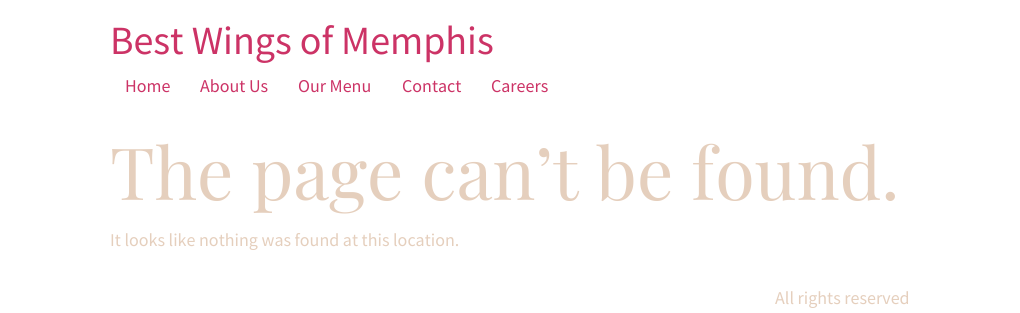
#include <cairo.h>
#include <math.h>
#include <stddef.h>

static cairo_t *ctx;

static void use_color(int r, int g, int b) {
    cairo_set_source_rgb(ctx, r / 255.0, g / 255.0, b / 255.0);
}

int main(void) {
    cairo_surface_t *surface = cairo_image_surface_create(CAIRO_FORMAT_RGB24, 1020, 313);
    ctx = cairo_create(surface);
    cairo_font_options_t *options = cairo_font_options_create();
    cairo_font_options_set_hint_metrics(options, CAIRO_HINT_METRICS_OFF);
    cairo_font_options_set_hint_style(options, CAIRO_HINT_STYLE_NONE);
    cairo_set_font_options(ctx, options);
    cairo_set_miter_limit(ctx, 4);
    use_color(255, 255, 255);
    cairo_paint(ctx);
    cairo_select_font_face(ctx, "Source Sans Pro", CAIRO_FONT_SLANT_NORMAL, CAIRO_FONT_WEIGHT_NORMAL);
    cairo_set_font_size(ctx, 40);
    use_color(204, 51, 102);
    cairo_move_to(ctx, 110, 54);
    cairo_show_text(ctx, "Best Wings of Memphis");
    cairo_set_font_size(ctx, 18);
    cairo_move_to(ctx, 125, 92);
    cairo_show_text(ctx, "Home");
    cairo_move_to(ctx, 200, 92);
    cairo_show_text(ctx, "About Us");
    cairo_move_to(ctx, 298, 92);
    cairo_show_text(ctx, "Our Menu");
    cairo_move_to(ctx, 402, 92);
    cairo_show_text(ctx, "Contact");
    cairo_move_to(ctx, 491, 92);
    cairo_show_text(ctx, "Careers");
    cairo_select_font_face(ctx, "Playfair Display", CAIRO_FONT_SLANT_NORMAL, CAIRO_FONT_WEIGHT_NORMAL);
    cairo_set_font_size(ctx, 72);
    use_color(229, 207, 189);
    cairo_move_to(ctx, 110, 200);
    cairo_show_text(ctx, "The page can’t be found.");
    cairo_select_font_face(ctx, "Source Sans Pro", CAIRO_FONT_SLANT_NORMAL, CAIRO_FONT_WEIGHT_NORMAL);
    cairo_set_font_size(ctx, 18);
    cairo_move_to(ctx, 110, 246);
    cairo_show_text(ctx, "It looks like nothing was found at this location.");
    cairo_move_to(ctx, 775, 304);
    cairo_show_text(ctx, "All rights reserved");
    cairo_surface_write_to_png(surface, "result.png");
    cairo_font_options_destroy(options);
    cairo_destroy(ctx);
    cairo_surface_destroy(surface);
    return 0;
}
